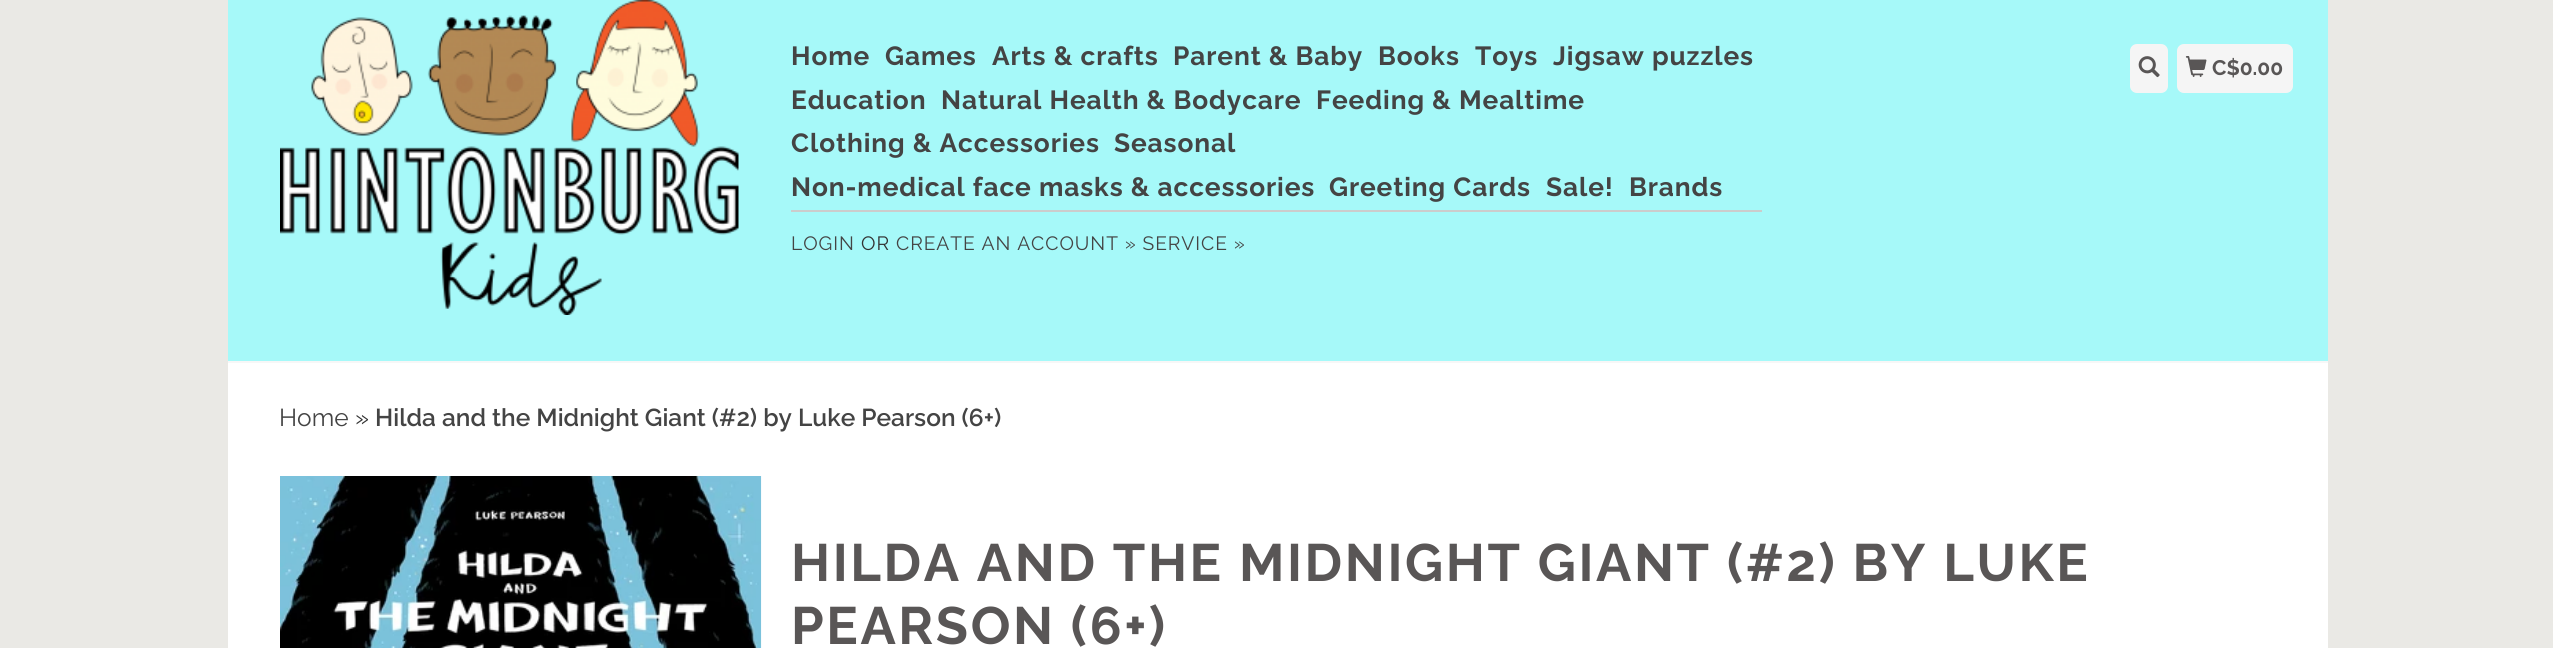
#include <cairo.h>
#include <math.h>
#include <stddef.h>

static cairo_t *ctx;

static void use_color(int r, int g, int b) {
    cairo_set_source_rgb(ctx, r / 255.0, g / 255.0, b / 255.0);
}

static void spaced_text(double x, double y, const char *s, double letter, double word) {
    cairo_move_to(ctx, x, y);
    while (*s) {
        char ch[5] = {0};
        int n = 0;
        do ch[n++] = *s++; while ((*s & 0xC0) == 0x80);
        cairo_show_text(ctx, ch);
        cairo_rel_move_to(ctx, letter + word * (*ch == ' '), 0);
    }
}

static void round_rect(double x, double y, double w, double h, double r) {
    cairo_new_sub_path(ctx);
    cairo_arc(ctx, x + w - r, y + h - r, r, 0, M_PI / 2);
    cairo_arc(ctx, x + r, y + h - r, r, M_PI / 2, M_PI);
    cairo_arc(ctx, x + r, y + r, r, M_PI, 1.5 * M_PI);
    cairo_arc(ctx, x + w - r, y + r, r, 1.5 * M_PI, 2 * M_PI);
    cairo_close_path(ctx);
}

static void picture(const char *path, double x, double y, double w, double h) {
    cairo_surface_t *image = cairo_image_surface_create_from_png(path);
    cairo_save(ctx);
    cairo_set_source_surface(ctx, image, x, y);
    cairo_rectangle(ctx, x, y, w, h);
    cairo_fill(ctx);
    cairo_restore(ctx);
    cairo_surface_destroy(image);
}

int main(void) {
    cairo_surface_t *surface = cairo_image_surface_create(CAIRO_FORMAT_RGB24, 2553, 648);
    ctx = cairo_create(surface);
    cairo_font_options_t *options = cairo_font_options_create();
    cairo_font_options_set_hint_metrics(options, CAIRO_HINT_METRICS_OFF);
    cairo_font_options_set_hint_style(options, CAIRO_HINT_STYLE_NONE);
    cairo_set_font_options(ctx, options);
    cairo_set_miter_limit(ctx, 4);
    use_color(234, 233, 229);
    cairo_paint(ctx);
    use_color(166, 249, 249);
    cairo_rectangle(ctx, 228, 0, 2100, 361);
    cairo_fill(ctx);
    use_color(247, 247, 247);
    cairo_rectangle(ctx, 228, 361, 2100, 2);
    cairo_fill(ctx);
    picture("img1.png", 280, 0, 459, 315);
    use_color(204, 204, 204);
    cairo_rectangle(ctx, 791, 210, 971, 2);
    cairo_fill(ctx);
    cairo_select_font_face(ctx, "Raleway", CAIRO_FONT_SLANT_NORMAL, CAIRO_FONT_WEIGHT_BOLD);
    cairo_set_font_size(ctx, 26.25);
    use_color(68, 68, 68);
    spaced_text(791, 65, "Home", 0.9, 0);
    spaced_text(885, 65, "Games", 0.9, 0);
    spaced_text(992, 65, "Arts & crafts", 0.9, 0);
    spaced_text(1173, 65, "Parent & Baby", 0.9, 0);
    spaced_text(1378, 65, "Books", 0.9, 0);
    spaced_text(1475, 65, "Toys", 0.9, 0);
    spaced_text(1553, 65, "Jigsaw puzzles", 0.9, 0);
    spaced_text(791, 109, "Education", 0.9, 0);
    spaced_text(941, 109, "Natural Health & Bodycare", 0.9, 0);
    spaced_text(1316, 109, "Feeding & Mealtime", 0.9, 0);
    spaced_text(791, 152, "Clothing & Accessories", 0.9, 0);
    spaced_text(1114, 152, "Seasonal", 0.9, 0);
    spaced_text(791, 196, "Non-medical face masks & accessories", 0.9, 0);
    spaced_text(1329, 196, "Greeting Cards", 0.9, 0);
    spaced_text(1546, 196, "Sale!", 0.9, 0);
    spaced_text(1629, 196, "Brands", 0.9, 0);
    cairo_select_font_face(ctx, "Raleway", CAIRO_FONT_SLANT_NORMAL, CAIRO_FONT_WEIGHT_NORMAL);
    cairo_set_font_size(ctx, 19.25);
    spaced_text(791, 250, "LOGIN", 0.95, 0);
    use_color(51, 51, 51);
    spaced_text(861, 250, "OR", 0.95, 0);
    use_color(68, 68, 68);
    spaced_text(896, 250, "CREATE AN ACCOUNT » SERVICE »", 0.95, 0);
    use_color(245, 245, 245);
    round_rect(2130, 44, 38, 49, 7);
    cairo_fill(ctx);
    picture("img2.png", 2138, 56, 22, 22);
    round_rect(2177, 44, 116, 49, 7);
    cairo_fill(ctx);
    picture("img3.png", 2185, 56, 22, 21);
    cairo_select_font_face(ctx, "Raleway", CAIRO_FONT_SLANT_NORMAL, CAIRO_FONT_WEIGHT_BOLD);
    cairo_set_font_size(ctx, 21);
    use_color(89, 86, 86);
    cairo_move_to(ctx, 2212, 75);
    cairo_show_text(ctx, "C$0.00");
    use_color(255, 255, 255);
    cairo_rectangle(ctx, 228, 363, 2100, 285);
    cairo_fill(ctx);
    cairo_select_font_face(ctx, "Raleway", CAIRO_FONT_SLANT_NORMAL, CAIRO_FONT_WEIGHT_NORMAL);
    cairo_set_font_size(ctx, 24.5);
    use_color(68, 68, 68);
    cairo_move_to(ctx, 279, 426);
    cairo_show_text(ctx, "Home");
    use_color(51, 51, 51);
    cairo_move_to(ctx, 355, 426);
    cairo_show_text(ctx, "»");
    cairo_select_font_face(ctx, "Raleway SemiBold", CAIRO_FONT_SLANT_NORMAL, CAIRO_FONT_WEIGHT_NORMAL);
    use_color(68, 68, 68);
    cairo_move_to(ctx, 375, 426);
    cairo_show_text(ctx, "Hilda and the Midnight Giant (#2) by Luke Pearson (6+)");
    picture("img4.png", 280, 476, 482, 172);
    cairo_select_font_face(ctx, "Raleway", CAIRO_FONT_SLANT_NORMAL, CAIRO_FONT_WEIGHT_BOLD);
    cairo_set_font_size(ctx, 52.5);
    use_color(89, 86, 86);
    spaced_text(791, 581, "HILDA AND THE MIDNIGHT GIANT (#2) BY LUKE", 2.6, 0);
    spaced_text(791, 644, "PEARSON (6+)", 2.6, 0);
    cairo_surface_write_to_png(surface, "result.png");
    cairo_font_options_destroy(options);
    cairo_destroy(ctx);
    cairo_surface_destroy(surface);
    return 0;
}
